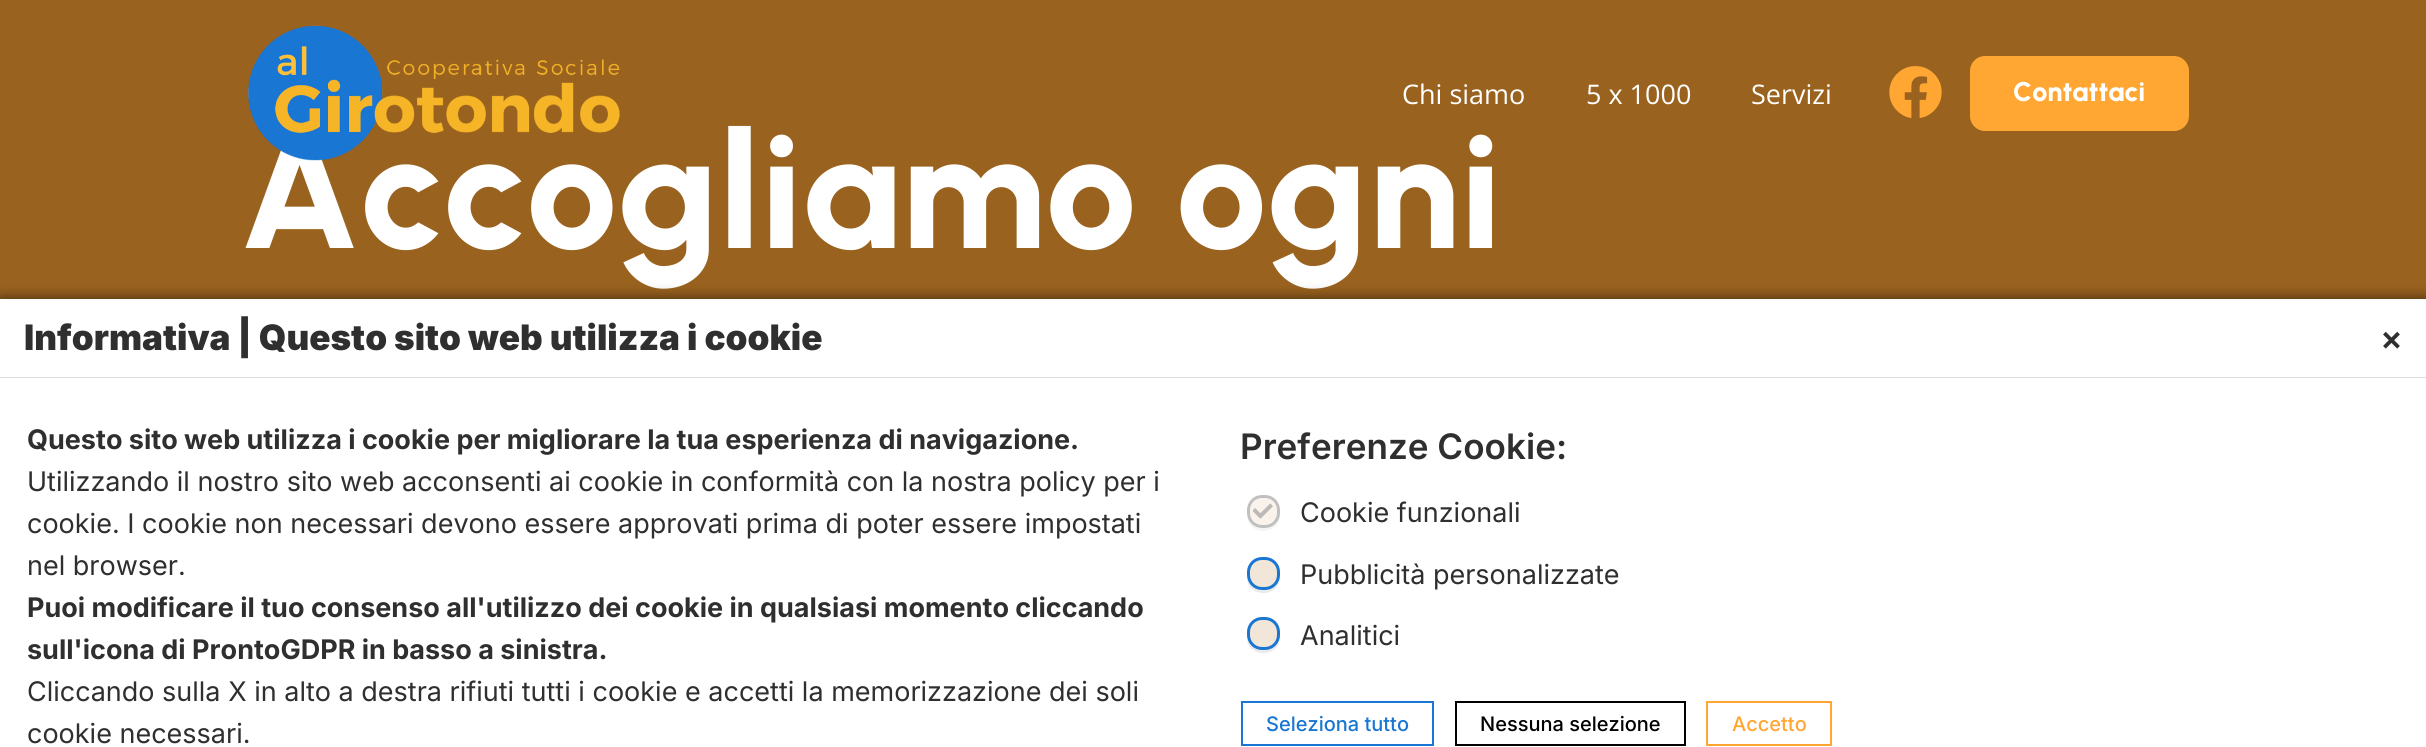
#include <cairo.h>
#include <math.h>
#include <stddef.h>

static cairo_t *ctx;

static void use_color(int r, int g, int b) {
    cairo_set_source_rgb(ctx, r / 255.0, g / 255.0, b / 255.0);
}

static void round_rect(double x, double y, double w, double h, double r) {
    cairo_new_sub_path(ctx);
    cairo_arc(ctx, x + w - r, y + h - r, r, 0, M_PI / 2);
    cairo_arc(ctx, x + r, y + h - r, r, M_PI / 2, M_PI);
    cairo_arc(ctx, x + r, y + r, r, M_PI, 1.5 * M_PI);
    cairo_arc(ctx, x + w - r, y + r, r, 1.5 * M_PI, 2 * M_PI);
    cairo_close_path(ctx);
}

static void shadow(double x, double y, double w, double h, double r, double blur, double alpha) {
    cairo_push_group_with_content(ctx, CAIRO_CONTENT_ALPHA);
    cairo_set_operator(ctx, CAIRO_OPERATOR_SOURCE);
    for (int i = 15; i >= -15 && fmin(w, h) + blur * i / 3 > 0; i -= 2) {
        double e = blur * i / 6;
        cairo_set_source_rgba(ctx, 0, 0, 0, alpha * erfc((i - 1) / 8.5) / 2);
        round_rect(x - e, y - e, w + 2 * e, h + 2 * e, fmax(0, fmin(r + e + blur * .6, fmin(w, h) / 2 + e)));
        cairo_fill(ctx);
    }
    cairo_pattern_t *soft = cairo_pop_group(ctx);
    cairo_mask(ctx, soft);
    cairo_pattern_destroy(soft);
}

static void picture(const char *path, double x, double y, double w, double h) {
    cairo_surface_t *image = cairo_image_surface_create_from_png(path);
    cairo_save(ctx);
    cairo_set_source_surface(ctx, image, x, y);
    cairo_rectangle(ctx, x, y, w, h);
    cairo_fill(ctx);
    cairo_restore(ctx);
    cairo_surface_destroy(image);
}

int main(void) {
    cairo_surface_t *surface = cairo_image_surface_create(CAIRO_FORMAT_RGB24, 2426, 747);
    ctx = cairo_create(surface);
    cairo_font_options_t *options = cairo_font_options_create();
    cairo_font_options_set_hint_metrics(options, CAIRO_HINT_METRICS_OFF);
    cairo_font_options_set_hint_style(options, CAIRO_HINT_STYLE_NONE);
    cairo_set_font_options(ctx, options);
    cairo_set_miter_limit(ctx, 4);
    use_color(154, 98, 31);
    cairo_paint(ctx);
    cairo_select_font_face(ctx, "Urbanist ExtraBold", CAIRO_FONT_SLANT_NORMAL, CAIRO_FONT_WEIGHT_NORMAL);
    cairo_set_font_size(ctx, 162.75);
    use_color(255, 255, 255);
    cairo_move_to(ctx, 239, 248);
    cairo_show_text(ctx, "Accogliamo ogni");
    picture("img1.png", 248, 25, 372, 136);
    cairo_select_font_face(ctx, "Open Sans", CAIRO_FONT_SLANT_NORMAL, CAIRO_FONT_WEIGHT_NORMAL);
    cairo_set_font_size(ctx, 27);
    cairo_move_to(ctx, 1402, 104);
    cairo_show_text(ctx, "Chi siamo");
    cairo_move_to(ctx, 1586, 104);
    cairo_show_text(ctx, "5 x 1000");
    cairo_move_to(ctx, 1751, 104);
    cairo_show_text(ctx, "Servizi");
    picture("img2.png", 1889, 66, 53, 52);
    use_color(255, 166, 51);
    round_rect(1970, 56, 219, 75, 15);
    cairo_fill(ctx);
    cairo_select_font_face(ctx, "Urbanist ExtraBold", CAIRO_FONT_SLANT_NORMAL, CAIRO_FONT_WEIGHT_NORMAL);
    use_color(255, 255, 255);
    cairo_move_to(ctx, 2013, 101);
    cairo_show_text(ctx, "Contattaci");
    use_color(0, 0, 0);
    shadow(0, 299, 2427, 448, 0, 7.5, 0.6);
    use_color(255, 255, 255);
    cairo_rectangle(ctx, 0, 299, 2426, 78);
    cairo_fill(ctx);
    use_color(223, 223, 223);
    cairo_rectangle(ctx, 0, 377, 2426, 1);
    cairo_fill(ctx);
    cairo_select_font_face(ctx, "Inter Black", CAIRO_FONT_SLANT_NORMAL, CAIRO_FONT_WEIGHT_NORMAL);
    cairo_set_font_size(ctx, 35.1);
    use_color(47, 47, 47);
    cairo_move_to(ctx, 24, 350);
    cairo_show_text(ctx, "Informativa | Questo sito web utilizza i cookie");
    cairo_select_font_face(ctx, "Inter SemiBold", CAIRO_FONT_SLANT_NORMAL, CAIRO_FONT_WEIGHT_NORMAL);
    cairo_set_font_size(ctx, 34);
    cairo_move_to(ctx, 2380, 350);
    cairo_show_text(ctx, "×");
    use_color(255, 255, 255);
    cairo_rectangle(ctx, 0, 378, 2426, 369);
    cairo_fill(ctx);
    cairo_select_font_face(ctx, "Inter", CAIRO_FONT_SLANT_NORMAL, CAIRO_FONT_WEIGHT_BOLD);
    cairo_set_font_size(ctx, 27);
    use_color(47, 47, 47);
    cairo_move_to(ctx, 27, 449);
    cairo_show_text(ctx, "Questo sito web utilizza i cookie per migliorare la tua esperienza di navigazione.");
    cairo_select_font_face(ctx, "Inter", CAIRO_FONT_SLANT_NORMAL, CAIRO_FONT_WEIGHT_NORMAL);
    cairo_move_to(ctx, 27, 491);
    cairo_show_text(ctx, "Utilizzando il nostro sito web acconsenti ai cookie in conformità con la nostra policy per i");
    cairo_move_to(ctx, 27, 533);
    cairo_show_text(ctx, "cookie. I cookie non necessari devono essere approvati prima di poter essere impostati");
    cairo_move_to(ctx, 27, 575);
    cairo_show_text(ctx, "nel browser.");
    cairo_select_font_face(ctx, "Inter", CAIRO_FONT_SLANT_NORMAL, CAIRO_FONT_WEIGHT_BOLD);
    cairo_move_to(ctx, 27, 617);
    cairo_show_text(ctx, "Puoi modificare il tuo consenso all'utilizzo dei cookie in qualsiasi momento cliccando");
    cairo_move_to(ctx, 27, 659);
    cairo_show_text(ctx, "sull'icona di ProntoGDPR in basso a sinistra.");
    cairo_select_font_face(ctx, "Inter", CAIRO_FONT_SLANT_NORMAL, CAIRO_FONT_WEIGHT_NORMAL);
    cairo_move_to(ctx, 27, 701);
    cairo_show_text(ctx, "Cliccando sulla X in alto a destra rifiuti tutti i cookie e accetti la memorizzazione dei soli");
    cairo_move_to(ctx, 27, 743);
    cairo_show_text(ctx, "cookie necessari.");
    cairo_select_font_face(ctx, "Inter SemiBold", CAIRO_FONT_SLANT_NORMAL, CAIRO_FONT_WEIGHT_NORMAL);
    cairo_set_font_size(ctx, 35.1);
    cairo_move_to(ctx, 1240, 459);
    cairo_show_text(ctx, "Preferenze Cookie:");
    use_color(245, 245, 245);
    cairo_new_path(ctx);
    cairo_move_to(ctx, 1247, 517);
    cairo_curve_to(ctx, 1248.5, 536, 1280, 536, 1280, 515);
    cairo_curve_to(ctx, 1280, 513, 1280, 511, 1279.5, 509);
    cairo_curve_to(ctx, 1279.5, 512.5, 1279.5, 516, 1278.5, 519);
    cairo_curve_to(ctx, 1273, 532, 1251, 531, 1247, 517);
    cairo_close_path(ctx);
    cairo_fill(ctx);
    use_color(249, 243, 236);
    round_rect(1248.5, 496.5, 30, 30, 13.5);
    cairo_fill_preserve(ctx);
    use_color(192, 192, 192);
    cairo_set_line_width(ctx, 3);
    cairo_stroke(ctx);
    picture("img3.png", 1253, 503, 20, 16);
    cairo_select_font_face(ctx, "Inter", CAIRO_FONT_SLANT_NORMAL, CAIRO_FONT_WEIGHT_NORMAL);
    cairo_set_font_size(ctx, 27);
    use_color(47, 47, 47);
    cairo_move_to(ctx, 1300, 522);
    cairo_show_text(ctx, "Cookie funzionali");
    use_color(235, 235, 235);
    cairo_new_path(ctx);
    cairo_move_to(ctx, 1247, 578.5);
    cairo_curve_to(ctx, 1247.5, 598, 1280, 598.5, 1280, 577);
    cairo_curve_to(ctx, 1280, 575, 1280, 573, 1279.5, 571);
    cairo_curve_to(ctx, 1279.5, 574, 1279.5, 577.5, 1278.5, 580.5);
    cairo_curve_to(ctx, 1272.5, 593.5, 1250.5, 592.5, 1247, 578.5);
    cairo_close_path(ctx);
    cairo_fill(ctx);
    use_color(242, 230, 216);
    round_rect(1248.5, 558.5, 30, 30, 13.5);
    cairo_fill_preserve(ctx);
    use_color(25, 118, 211);
    cairo_stroke(ctx);
    use_color(47, 47, 47);
    cairo_move_to(ctx, 1300, 584);
    cairo_show_text(ctx, "Pubblicità personalizzate");
    use_color(235, 235, 235);
    cairo_new_path(ctx);
    cairo_move_to(ctx, 1247, 638.5);
    cairo_curve_to(ctx, 1247.5, 658, 1280, 658.5, 1280, 637);
    cairo_curve_to(ctx, 1280, 635, 1280, 633, 1279.5, 631);
    cairo_curve_to(ctx, 1279.5, 634, 1279.5, 637.5, 1278.5, 640.5);
    cairo_curve_to(ctx, 1272.5, 653.5, 1250.5, 652.5, 1247, 638.5);
    cairo_close_path(ctx);
    cairo_fill(ctx);
    use_color(242, 230, 216);
    round_rect(1248.5, 618.5, 30, 30, 13.5);
    cairo_fill_preserve(ctx);
    use_color(25, 118, 211);
    cairo_stroke(ctx);
    use_color(47, 47, 47);
    cairo_move_to(ctx, 1300, 645);
    cairo_show_text(ctx, "Analitici");
    cairo_rectangle(ctx, 1242, 702, 191, 43);
    use_color(25, 118, 211);
    cairo_set_line_width(ctx, 2);
    cairo_stroke(ctx);
    cairo_select_font_face(ctx, "Inter Medium", CAIRO_FONT_SLANT_NORMAL, CAIRO_FONT_WEIGHT_NORMAL);
    cairo_set_font_size(ctx, 20);
    cairo_move_to(ctx, 1266, 731);
    cairo_show_text(ctx, "Seleziona tutto");
    cairo_rectangle(ctx, 1456, 702, 229, 43);
    use_color(0, 0, 0);
    cairo_stroke(ctx);
    cairo_move_to(ctx, 1480, 731);
    cairo_show_text(ctx, "Nessuna selezione");
    cairo_rectangle(ctx, 1707, 702, 124, 43);
    use_color(255, 166, 51);
    cairo_stroke(ctx);
    cairo_move_to(ctx, 1732, 731);
    cairo_show_text(ctx, "Accetto");
    cairo_surface_write_to_png(surface, "result.png");
    cairo_font_options_destroy(options);
    cairo_destroy(ctx);
    cairo_surface_destroy(surface);
    return 0;
}
